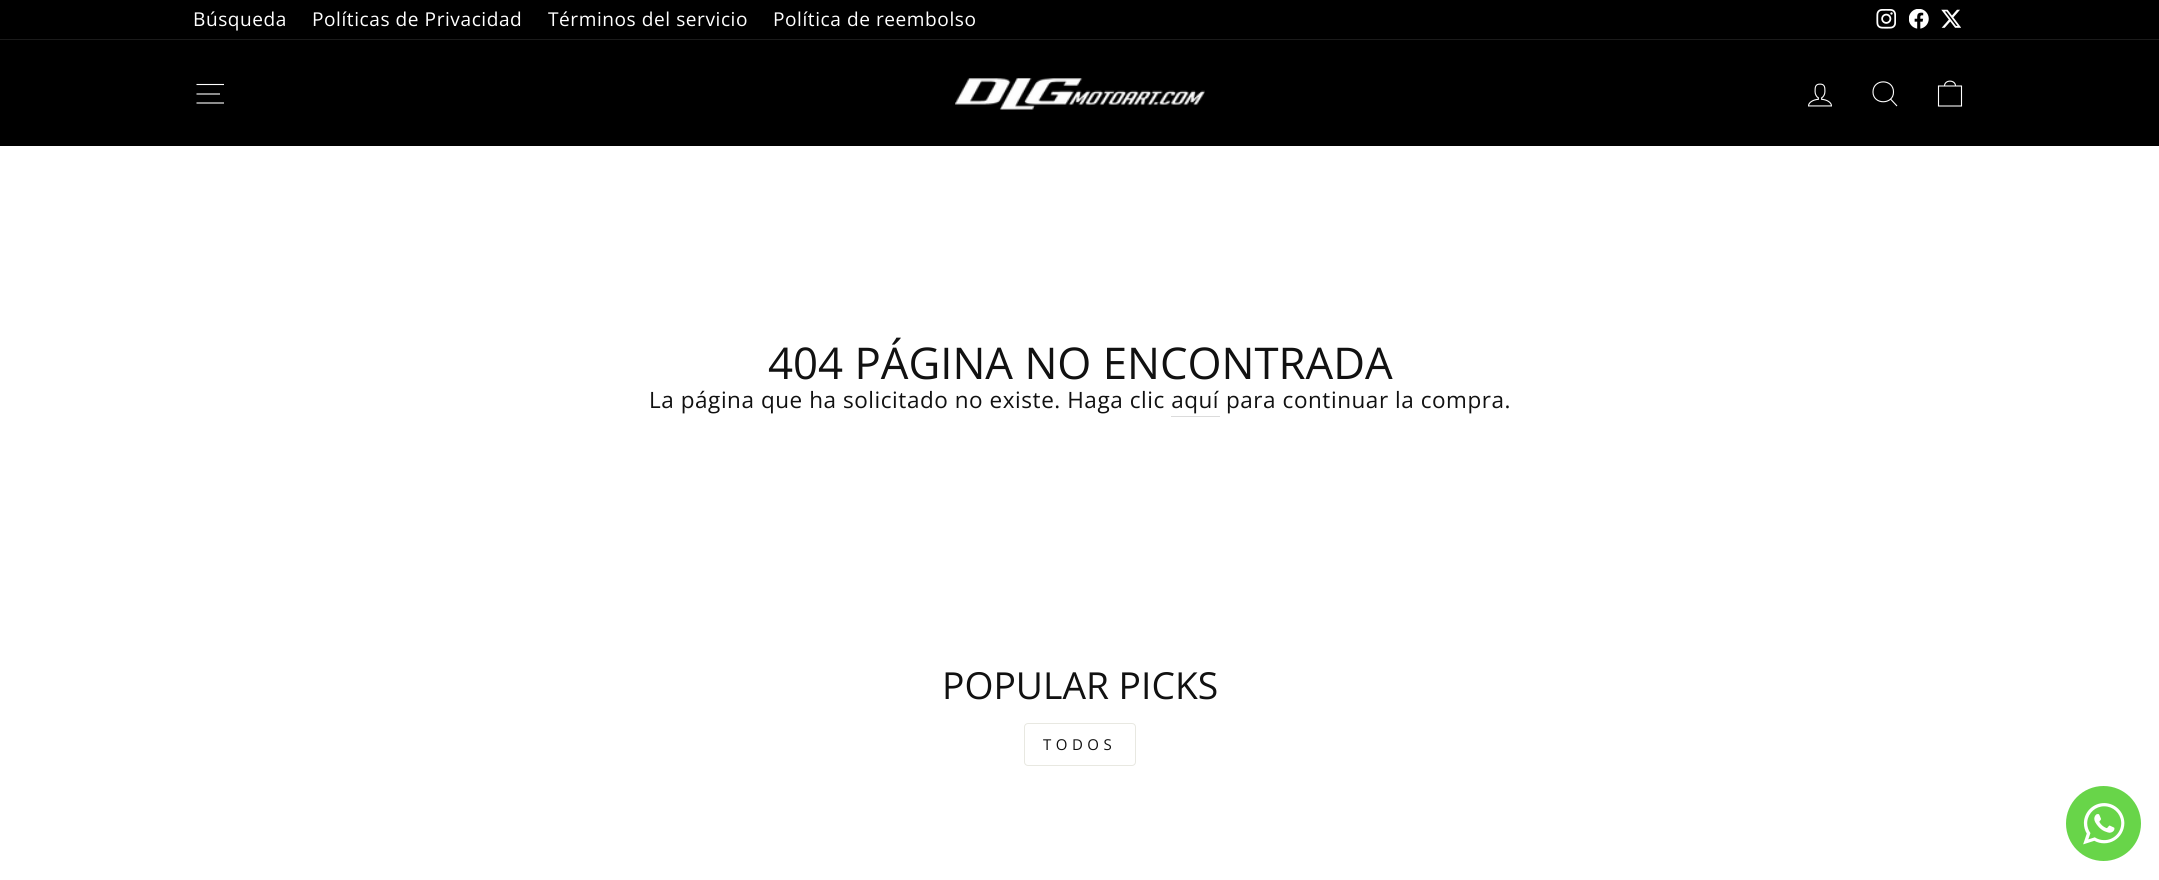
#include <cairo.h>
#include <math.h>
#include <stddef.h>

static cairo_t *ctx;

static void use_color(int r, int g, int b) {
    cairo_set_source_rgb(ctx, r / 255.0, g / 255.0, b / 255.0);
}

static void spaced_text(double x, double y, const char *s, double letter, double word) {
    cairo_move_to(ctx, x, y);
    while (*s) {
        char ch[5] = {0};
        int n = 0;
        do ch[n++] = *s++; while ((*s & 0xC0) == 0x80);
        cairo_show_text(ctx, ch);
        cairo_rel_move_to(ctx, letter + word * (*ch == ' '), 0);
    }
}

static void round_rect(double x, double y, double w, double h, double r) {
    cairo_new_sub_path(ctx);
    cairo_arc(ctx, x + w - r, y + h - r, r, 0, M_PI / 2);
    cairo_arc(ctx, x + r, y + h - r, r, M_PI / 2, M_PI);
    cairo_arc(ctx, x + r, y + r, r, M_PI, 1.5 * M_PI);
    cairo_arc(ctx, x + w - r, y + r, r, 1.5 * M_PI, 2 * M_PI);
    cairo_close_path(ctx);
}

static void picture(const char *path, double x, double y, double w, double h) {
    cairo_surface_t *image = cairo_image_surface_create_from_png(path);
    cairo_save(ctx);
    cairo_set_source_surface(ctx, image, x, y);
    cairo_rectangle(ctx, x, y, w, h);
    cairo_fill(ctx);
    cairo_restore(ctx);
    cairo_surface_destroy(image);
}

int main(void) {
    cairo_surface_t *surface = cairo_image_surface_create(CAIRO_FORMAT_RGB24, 2159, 880);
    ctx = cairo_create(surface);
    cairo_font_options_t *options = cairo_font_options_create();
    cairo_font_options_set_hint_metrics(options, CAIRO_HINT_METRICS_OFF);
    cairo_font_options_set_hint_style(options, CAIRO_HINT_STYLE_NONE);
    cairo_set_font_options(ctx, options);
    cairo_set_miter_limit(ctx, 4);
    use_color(255, 255, 255);
    cairo_paint(ctx);
    use_color(0, 0, 0);
    cairo_rectangle(ctx, 0, 0, 2159, 39);
    cairo_fill(ctx);
    cairo_select_font_face(ctx, "Open Sans", CAIRO_FONT_SLANT_NORMAL, CAIRO_FONT_WEIGHT_NORMAL);
    cairo_set_font_size(ctx, 19.1);
    use_color(255, 255, 255);
    spaced_text(193, 26, "Búsqueda", 0.55, 0);
    spaced_text(312, 26, "Políticas de Privacidad", 0.55, 0);
    spaced_text(548, 26, "Términos del servicio", 0.55, 0);
    spaced_text(773, 26, "Política de reembolso", 0.55, 0);
    picture("img1.png", 1876, 9, 20, 20);
    picture("img2.png", 1909, 9, 20, 20);
    picture("img3.png", 1941, 9, 20, 19);
    use_color(0, 0, 0);
    cairo_rectangle(ctx, 0, 40, 2159, 106);
    cairo_fill(ctx);
    use_color(26, 26, 26);
    cairo_rectangle(ctx, 0, 39, 2159, 1);
    cairo_fill(ctx);
    cairo_new_path(ctx);
    cairo_move_to(ctx, 196.5, 84.5);
    cairo_line_to(ctx, 224, 84.5);
    cairo_move_to(ctx, 196.5, 94);
    cairo_line_to(ctx, 220, 94);
    cairo_move_to(ctx, 196.5, 103);
    cairo_line_to(ctx, 224, 103);
    use_color(255, 255, 255);
    cairo_set_line_width(ctx, 1.1);
    cairo_stroke(ctx);
    picture("img4.png", 955, 78, 250, 32);
    picture("img5.png", 1808, 83, 24, 24);
    cairo_new_path(ctx);
    cairo_move_to(ctx, 1893.5, 92);
    cairo_curve_to(ctx, 1893.5, 105, 1873, 105, 1873, 92);
    cairo_curve_to(ctx, 1873, 78.5, 1893.5, 78.5, 1893.5, 92);
    cairo_close_path(ctx);
    cairo_move_to(ctx, 1897, 106);
    cairo_line_to(ctx, 1890.5, 99);
    cairo_stroke(ctx);
    cairo_new_path(ctx);
    cairo_move_to(ctx, 1938.5, 86);
    cairo_line_to(ctx, 1961.5, 86);
    cairo_line_to(ctx, 1961.5, 106);
    cairo_line_to(ctx, 1938.5, 106);
    cairo_close_path(ctx);
    cairo_move_to(ctx, 1944.5, 86);
    cairo_curve_to(ctx, 1944.5, 79.5, 1955.5, 79.5, 1955.5, 86);
    cairo_stroke(ctx);
    cairo_set_font_size(ctx, 43.75);
    use_color(17, 17, 17);
    cairo_move_to(ctx, 768, 379);
    cairo_show_text(ctx, "404 PÁGINA NO ENCONTRADA");
    cairo_set_font_size(ctx, 22.5);
    spaced_text(649, 408, "La página que ha solicitado no existe. Haga clic aquí", 0.55, 0);
    spaced_text(1226, 408, "para continuar la compra.", 0.55, 0);
    use_color(219, 219, 219);
    cairo_rectangle(ctx, 1171, 416, 49, 1);
    cairo_fill(ctx);
    cairo_set_font_size(ctx, 37.25);
    use_color(17, 17, 17);
    cairo_move_to(ctx, 942, 699);
    cairo_show_text(ctx, "POPULAR PICKS");
    round_rect(1024.5, 723.5, 111, 42, 3.5);
    use_color(232, 232, 225);
    cairo_set_line_width(ctx, 1);
    cairo_stroke(ctx);
    cairo_set_font_size(ctx, 15);
    use_color(17, 17, 17);
    spaced_text(1043, 750, "TODOS", 4.5, 0);
    picture("img6.png", 2066, 786, 75, 75);
    cairo_surface_write_to_png(surface, "result.png");
    cairo_font_options_destroy(options);
    cairo_destroy(ctx);
    cairo_surface_destroy(surface);
    return 0;
}
